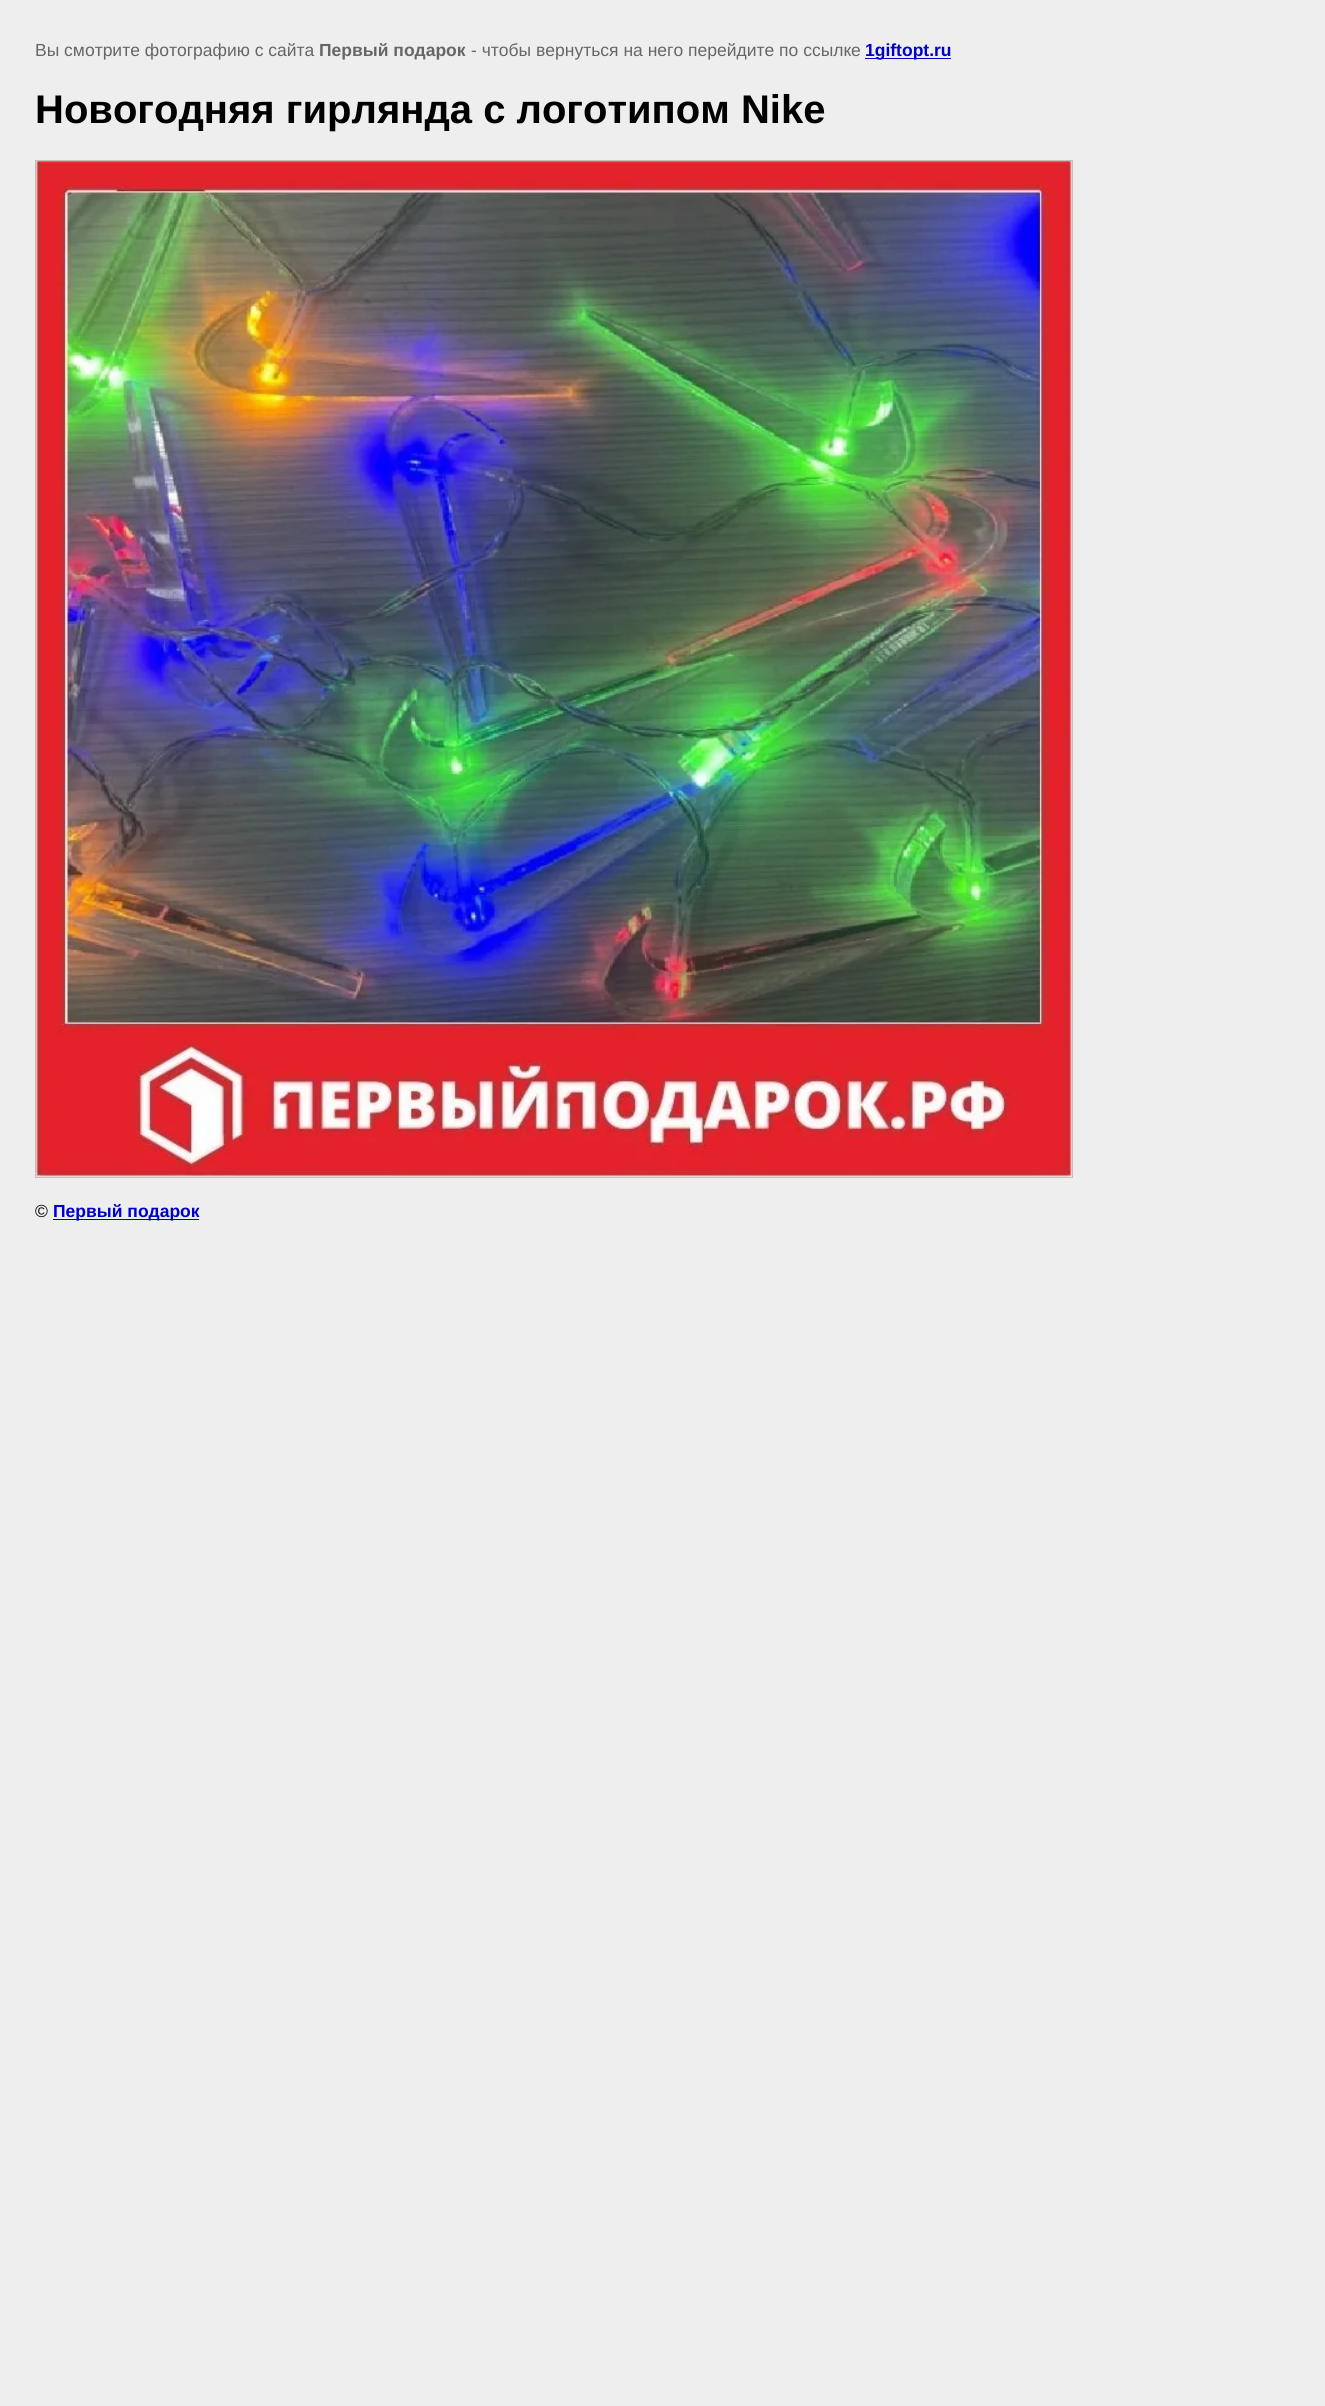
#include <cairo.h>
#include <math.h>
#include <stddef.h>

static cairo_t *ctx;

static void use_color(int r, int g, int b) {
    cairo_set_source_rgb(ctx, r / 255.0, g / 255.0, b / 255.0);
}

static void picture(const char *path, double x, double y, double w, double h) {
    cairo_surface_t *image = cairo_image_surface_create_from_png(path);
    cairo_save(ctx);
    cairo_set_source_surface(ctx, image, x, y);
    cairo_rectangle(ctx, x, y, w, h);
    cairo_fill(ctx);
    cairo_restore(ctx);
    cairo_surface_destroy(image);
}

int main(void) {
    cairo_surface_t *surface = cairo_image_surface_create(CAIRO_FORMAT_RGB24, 1325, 2406);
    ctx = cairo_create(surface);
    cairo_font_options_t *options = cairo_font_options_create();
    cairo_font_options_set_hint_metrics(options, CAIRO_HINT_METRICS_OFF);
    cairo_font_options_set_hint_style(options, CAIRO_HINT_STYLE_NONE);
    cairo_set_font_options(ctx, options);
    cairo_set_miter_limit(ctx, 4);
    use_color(238, 238, 238);
    cairo_paint(ctx);
    cairo_select_font_face(ctx, "Liberation Sans", CAIRO_FONT_SLANT_NORMAL, CAIRO_FONT_WEIGHT_NORMAL);
    cairo_set_font_size(ctx, 17.5);
    use_color(102, 102, 102);
    cairo_move_to(ctx, 35, 56);
    cairo_show_text(ctx, "Вы смотрите фотографию с сайта");
    cairo_select_font_face(ctx, "Liberation Sans", CAIRO_FONT_SLANT_NORMAL, CAIRO_FONT_WEIGHT_BOLD);
    cairo_move_to(ctx, 319, 56);
    cairo_show_text(ctx, "Первый подарок");
    cairo_select_font_face(ctx, "Liberation Sans", CAIRO_FONT_SLANT_NORMAL, CAIRO_FONT_WEIGHT_NORMAL);
    cairo_move_to(ctx, 471, 56);
    cairo_show_text(ctx, "- чтобы вернуться на него перейдите по ссылке");
    use_color(0, 0, 204);
    cairo_rectangle(ctx, 865, 58, 86, 1);
    cairo_fill(ctx);
    cairo_select_font_face(ctx, "Liberation Sans", CAIRO_FONT_SLANT_NORMAL, CAIRO_FONT_WEIGHT_BOLD);
    cairo_move_to(ctx, 865, 56);
    cairo_show_text(ctx, "1giftopt.ru");
    cairo_set_font_size(ctx, 40);
    use_color(0, 0, 0);
    cairo_move_to(ctx, 35, 123);
    cairo_show_text(ctx, "Новогодняя гирлянда с логотипом Nike");
    cairo_rectangle(ctx, 35.5, 160.5, 1037, 1017);
    use_color(192, 192, 192);
    cairo_set_line_width(ctx, 1);
    cairo_stroke(ctx);
    picture("img1.png", 36, 161, 1036, 1016);
    cairo_select_font_face(ctx, "Liberation Sans", CAIRO_FONT_SLANT_NORMAL, CAIRO_FONT_WEIGHT_NORMAL);
    cairo_set_font_size(ctx, 17.5);
    use_color(0, 0, 0);
    cairo_move_to(ctx, 35, 1217);
    cairo_show_text(ctx, "©");
    use_color(0, 0, 204);
    cairo_rectangle(ctx, 53, 1219, 146, 1);
    cairo_fill(ctx);
    cairo_select_font_face(ctx, "Liberation Sans", CAIRO_FONT_SLANT_NORMAL, CAIRO_FONT_WEIGHT_BOLD);
    cairo_move_to(ctx, 53, 1217);
    cairo_show_text(ctx, "Первый подарок");
    cairo_surface_write_to_png(surface, "result.png");
    cairo_font_options_destroy(options);
    cairo_destroy(ctx);
    cairo_surface_destroy(surface);
    return 0;
}
